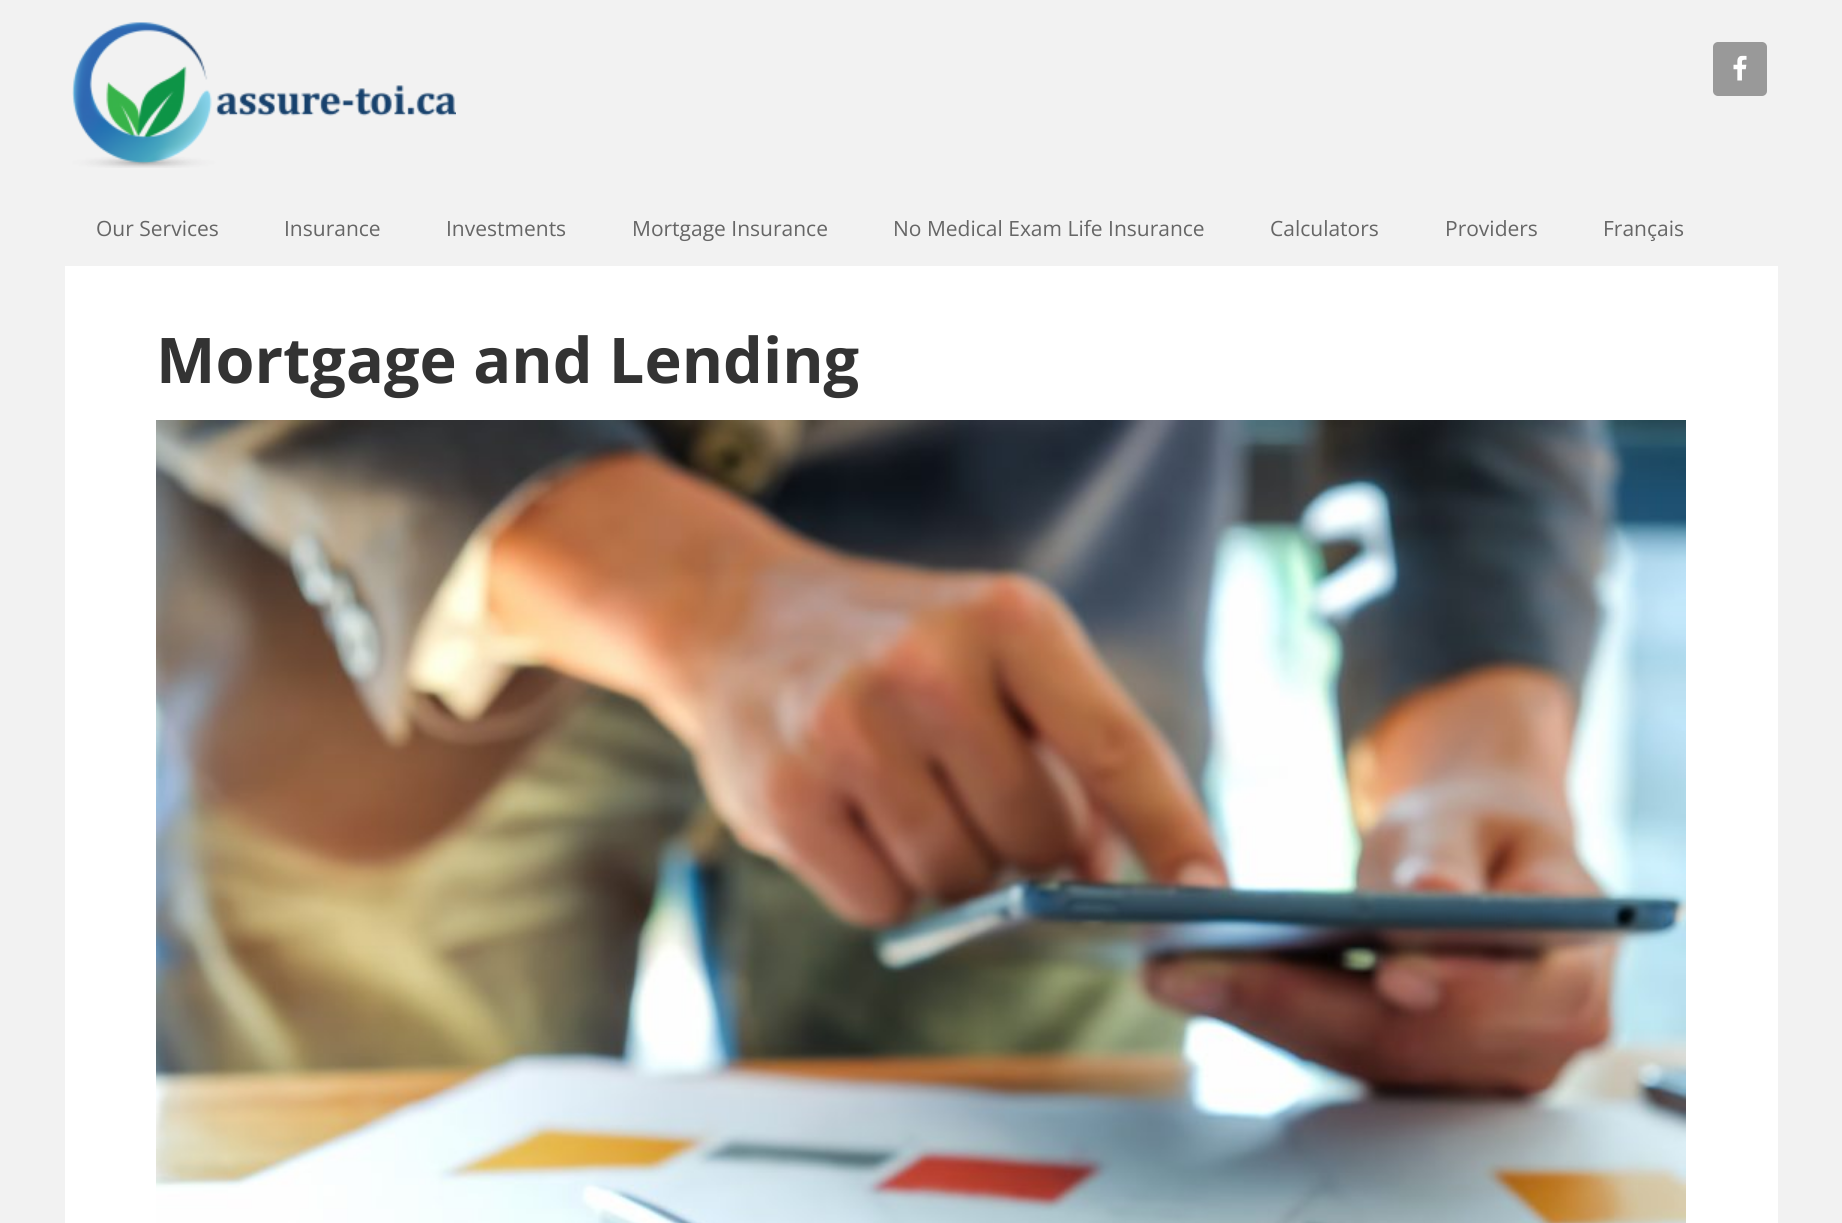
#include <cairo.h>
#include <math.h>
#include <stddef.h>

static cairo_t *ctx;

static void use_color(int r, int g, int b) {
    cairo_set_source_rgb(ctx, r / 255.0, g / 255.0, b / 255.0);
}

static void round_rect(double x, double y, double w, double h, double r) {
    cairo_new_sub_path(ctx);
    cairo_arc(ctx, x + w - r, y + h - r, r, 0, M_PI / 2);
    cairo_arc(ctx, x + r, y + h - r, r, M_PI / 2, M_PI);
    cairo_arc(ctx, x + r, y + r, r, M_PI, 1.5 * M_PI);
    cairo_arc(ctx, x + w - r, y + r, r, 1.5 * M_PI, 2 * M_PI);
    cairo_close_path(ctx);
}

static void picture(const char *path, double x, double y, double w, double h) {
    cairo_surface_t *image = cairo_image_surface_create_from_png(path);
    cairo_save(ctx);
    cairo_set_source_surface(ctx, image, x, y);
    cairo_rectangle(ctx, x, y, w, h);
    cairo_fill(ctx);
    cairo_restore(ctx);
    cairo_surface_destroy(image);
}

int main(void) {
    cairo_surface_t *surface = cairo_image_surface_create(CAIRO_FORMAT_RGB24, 1842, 1223);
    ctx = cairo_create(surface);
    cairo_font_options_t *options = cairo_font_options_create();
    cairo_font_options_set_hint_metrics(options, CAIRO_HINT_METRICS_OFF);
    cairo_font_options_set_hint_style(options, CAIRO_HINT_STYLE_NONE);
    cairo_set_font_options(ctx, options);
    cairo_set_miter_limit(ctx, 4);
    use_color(242, 242, 242);
    cairo_paint(ctx);
    picture("img1.png", 72, 22, 384, 146);
    use_color(153, 153, 153);
    round_rect(1713, 42, 54, 54, 5);
    cairo_fill(ctx);
    picture("img2.png", 1733, 55, 14, 26);
    cairo_select_font_face(ctx, "Open Sans", CAIRO_FONT_SLANT_NORMAL, CAIRO_FONT_WEIGHT_NORMAL);
    cairo_set_font_size(ctx, 21);
    use_color(102, 102, 102);
    cairo_move_to(ctx, 96, 236);
    cairo_show_text(ctx, "Our Services");
    cairo_move_to(ctx, 284, 236);
    cairo_show_text(ctx, "Insurance");
    cairo_move_to(ctx, 446, 236);
    cairo_show_text(ctx, "Investments");
    cairo_move_to(ctx, 632, 236);
    cairo_show_text(ctx, "Mortgage Insurance");
    cairo_move_to(ctx, 893, 236);
    cairo_show_text(ctx, "No Medical Exam Life Insurance");
    cairo_move_to(ctx, 1270, 236);
    cairo_show_text(ctx, "Calculators");
    cairo_move_to(ctx, 1445, 236);
    cairo_show_text(ctx, "Providers");
    cairo_move_to(ctx, 1603, 236);
    cairo_show_text(ctx, "Français");
    cairo_rectangle(ctx, 66, 267, 1711, 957);
    use_color(255, 255, 255);
    cairo_stroke(ctx);
    cairo_rectangle(ctx, 67, 268, 1709, 955);
    cairo_fill(ctx);
    cairo_select_font_face(ctx, "Open Sans", CAIRO_FONT_SLANT_NORMAL, CAIRO_FONT_WEIGHT_BOLD);
    cairo_set_font_size(ctx, 63);
    use_color(51, 51, 51);
    cairo_move_to(ctx, 156, 383);
    cairo_show_text(ctx, "Mortgage and Lending");
    picture("img3.png", 156, 420, 1530, 803);
    cairo_surface_write_to_png(surface, "result.png");
    cairo_font_options_destroy(options);
    cairo_destroy(ctx);
    cairo_surface_destroy(surface);
    return 0;
}
